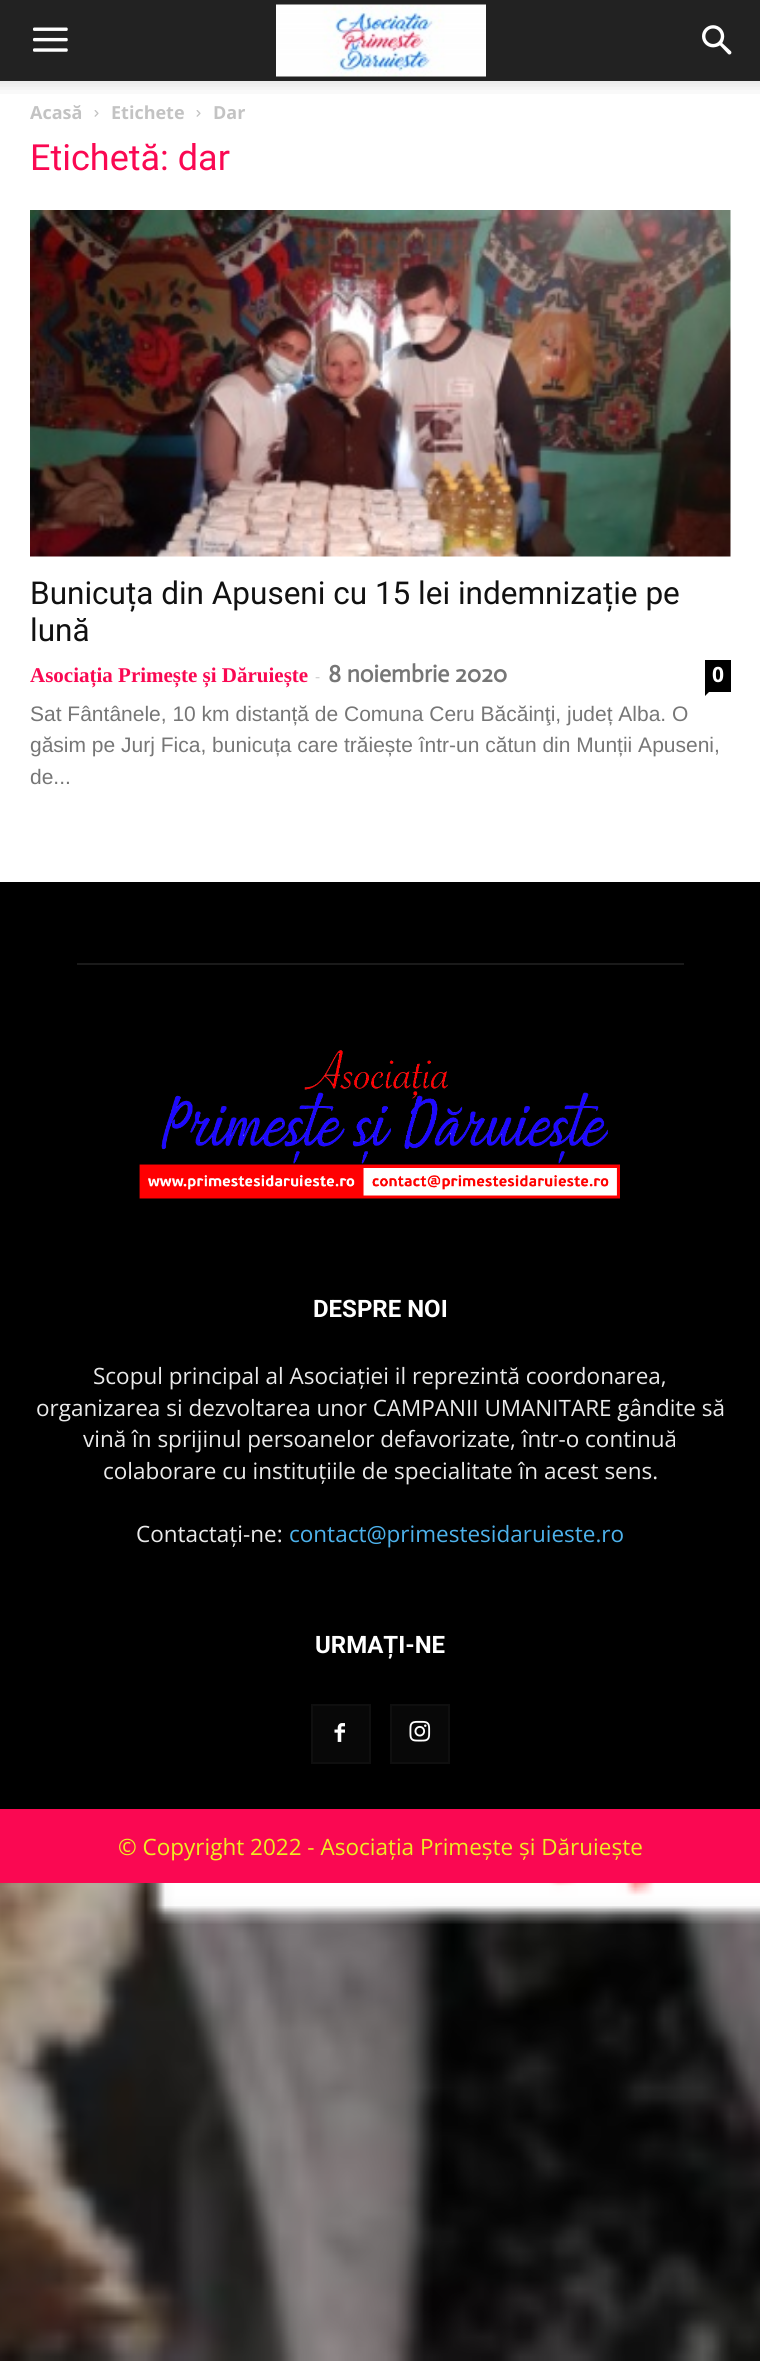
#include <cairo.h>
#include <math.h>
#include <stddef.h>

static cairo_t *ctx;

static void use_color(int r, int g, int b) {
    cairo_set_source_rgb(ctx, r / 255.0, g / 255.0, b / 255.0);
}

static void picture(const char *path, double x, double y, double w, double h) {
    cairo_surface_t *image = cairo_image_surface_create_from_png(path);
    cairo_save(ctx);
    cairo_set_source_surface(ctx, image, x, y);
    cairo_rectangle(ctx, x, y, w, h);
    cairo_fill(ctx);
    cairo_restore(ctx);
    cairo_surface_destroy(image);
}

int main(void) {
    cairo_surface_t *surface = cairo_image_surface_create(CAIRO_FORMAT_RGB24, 760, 2361);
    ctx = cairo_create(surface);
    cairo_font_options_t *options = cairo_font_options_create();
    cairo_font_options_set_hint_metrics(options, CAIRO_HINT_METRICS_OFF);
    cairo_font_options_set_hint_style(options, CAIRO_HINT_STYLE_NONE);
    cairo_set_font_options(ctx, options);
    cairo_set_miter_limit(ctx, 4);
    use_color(255, 255, 255);
    cairo_paint(ctx);
    use_color(34, 34, 34);
    cairo_rectangle(ctx, 0, 0, 760, 81);
    cairo_fill(ctx);
    picture("img1.png", 33, 27, 35, 25);
    picture("img2.png", 276, 4, 210, 73);
    picture("img3.png", 702, 25, 30, 30);
    picture("img4.png", 0, 81, 760, 13);
    cairo_select_font_face(ctx, "Open Sans", CAIRO_FONT_SLANT_NORMAL, CAIRO_FONT_WEIGHT_BOLD);
    cairo_set_font_size(ctx, 18);
    use_color(195, 195, 195);
    cairo_move_to(ctx, 30, 119);
    cairo_show_text(ctx, "Acasă");
    picture("img5.png", 94, 110, 5, 7);
    cairo_move_to(ctx, 111, 119);
    cairo_show_text(ctx, "Etichete");
    picture("img5.png", 196, 110, 5, 7);
    cairo_move_to(ctx, 213, 119);
    cairo_show_text(ctx, "Dar");
    cairo_select_font_face(ctx, "Roboto", CAIRO_FONT_SLANT_NORMAL, CAIRO_FONT_WEIGHT_NORMAL);
    cairo_set_font_size(ctx, 36);
    use_color(250, 8, 82);
    cairo_move_to(ctx, 30, 170);
    cairo_show_text(ctx, "Etichetă: dar");
    picture("img6.png", 30, 210, 701, 347);
    cairo_set_font_size(ctx, 31.5);
    use_color(17, 17, 17);
    cairo_move_to(ctx, 30, 604);
    cairo_show_text(ctx, "Bunicuța din Apuseni cu 15 lei indemnizație pe");
    cairo_move_to(ctx, 30, 641);
    cairo_show_text(ctx, "lună");
    cairo_select_font_face(ctx, "Liberation Serif", CAIRO_FONT_SLANT_NORMAL, CAIRO_FONT_WEIGHT_BOLD);
    cairo_set_font_size(ctx, 21);
    use_color(250, 8, 82);
    cairo_move_to(ctx, 30, 682);
    cairo_show_text(ctx, "Asociația Primește și Dăruiește");
    cairo_select_font_face(ctx, "Open Sans", CAIRO_FONT_SLANT_NORMAL, CAIRO_FONT_WEIGHT_NORMAL);
    cairo_set_font_size(ctx, 16);
    use_color(204, 204, 204);
    cairo_move_to(ctx, 315, 682);
    cairo_show_text(ctx, "-");
    cairo_select_font_face(ctx, "Actor", CAIRO_FONT_SLANT_NORMAL, CAIRO_FONT_WEIGHT_BOLD);
    cairo_set_font_size(ctx, 24);
    use_color(118, 118, 118);
    cairo_move_to(ctx, 328, 682);
    cairo_show_text(ctx, "8 noiembrie 2020");
    use_color(0, 0, 0);
    cairo_rectangle(ctx, 705, 660, 26, 32);
    cairo_fill(ctx);
    cairo_select_font_face(ctx, "Open Sans", CAIRO_FONT_SLANT_NORMAL, CAIRO_FONT_WEIGHT_BOLD);
    cairo_set_font_size(ctx, 21);
    use_color(255, 255, 255);
    cairo_move_to(ctx, 712, 682);
    cairo_show_text(ctx, "0");
    use_color(0, 0, 0);
    cairo_new_path(ctx);
    cairo_move_to(ctx, 705, 691.5);
    cairo_line_to(ctx, 709.5, 691.5);
    cairo_line_to(ctx, 705, 696);
    cairo_close_path(ctx);
    cairo_fill(ctx);
    cairo_select_font_face(ctx, "Liberation Sans", CAIRO_FONT_SLANT_NORMAL, CAIRO_FONT_WEIGHT_NORMAL);
    use_color(118, 118, 118);
    cairo_move_to(ctx, 30, 721);
    cairo_show_text(ctx, "Sat Fântânele, 10 km distanță de Comuna Ceru Băcăinţi, județ Alba. O");
    cairo_move_to(ctx, 30, 752);
    cairo_show_text(ctx, "găsim pe Jurj Fica, bunicuța care trăiește într-un cătun din Munții Apuseni,");
    cairo_move_to(ctx, 30, 784);
    cairo_show_text(ctx, "de...");
    use_color(0, 0, 0);
    cairo_rectangle(ctx, 0, 882, 760, 927);
    cairo_fill(ctx);
    use_color(26, 26, 26);
    cairo_rectangle(ctx, 77, 963, 607, 2);
    cairo_fill(ctx);
    picture("img7.png", 139, 1050, 481, 149);
    cairo_select_font_face(ctx, "Roboto", CAIRO_FONT_SLANT_NORMAL, CAIRO_FONT_WEIGHT_BOLD);
    cairo_set_font_size(ctx, 24);
    use_color(255, 255, 255);
    cairo_move_to(ctx, 313, 1317);
    cairo_show_text(ctx, "DESPRE NOI");
    cairo_select_font_face(ctx, "Open Sans", CAIRO_FONT_SLANT_NORMAL, CAIRO_FONT_WEIGHT_NORMAL);
    cairo_set_font_size(ctx, 22.5);
    use_color(234, 234, 234);
    cairo_move_to(ctx, 93, 1384);
    cairo_show_text(ctx, "Scopul principal al Asociației il reprezintă coordonarea,");
    cairo_move_to(ctx, 36, 1416);
    cairo_show_text(ctx, "organizarea si dezvoltarea unor CAMPANII UMANITARE gândite să");
    cairo_move_to(ctx, 83, 1447);
    cairo_show_text(ctx, "vină în sprijinul persoanelor defavorizate, într-o continuă");
    cairo_move_to(ctx, 103, 1479);
    cairo_show_text(ctx, "colaborare cu instituțiile de specialitate în acest sens.");
    cairo_move_to(ctx, 136, 1542);
    cairo_show_text(ctx, "Contactați-ne:");
    use_color(77, 178, 236);
    cairo_move_to(ctx, 289, 1542);
    cairo_show_text(ctx, "contact@primestesidaruieste.ro");
    cairo_select_font_face(ctx, "Roboto", CAIRO_FONT_SLANT_NORMAL, CAIRO_FONT_WEIGHT_BOLD);
    cairo_set_font_size(ctx, 24);
    use_color(255, 255, 255);
    cairo_move_to(ctx, 315, 1653);
    cairo_show_text(ctx, "URMAȚI-NE");
    use_color(8, 8, 8);
    cairo_rectangle(ctx, 313, 1706, 56, 56);
    cairo_fill(ctx);
    picture("img8.png", 334, 1723, 11, 19);
    cairo_rectangle(ctx, 312, 1705, 58, 58);
    use_color(15, 15, 15);
    cairo_stroke(ctx);
    use_color(8, 8, 8);
    cairo_rectangle(ctx, 392, 1706, 56, 56);
    cairo_fill(ctx);
    picture("img9.png", 409, 1720, 22, 22);
    cairo_rectangle(ctx, 391, 1705, 58, 58);
    use_color(15, 15, 15);
    cairo_stroke(ctx);
    use_color(250, 8, 82);
    cairo_rectangle(ctx, 0, 1809, 760, 74);
    cairo_fill(ctx);
    cairo_select_font_face(ctx, "Open Sans", CAIRO_FONT_SLANT_NORMAL, CAIRO_FONT_WEIGHT_NORMAL);
    cairo_set_font_size(ctx, 22.5);
    use_color(238, 238, 34);
    cairo_move_to(ctx, 118, 1855);
    cairo_show_text(ctx, "© Copyright 2022 - Asociația Primește și Dăruiește");
    picture("img10.png", 0, 1883, 760, 478);
    cairo_surface_write_to_png(surface, "result.png");
    cairo_font_options_destroy(options);
    cairo_destroy(ctx);
    cairo_surface_destroy(surface);
    return 0;
}
